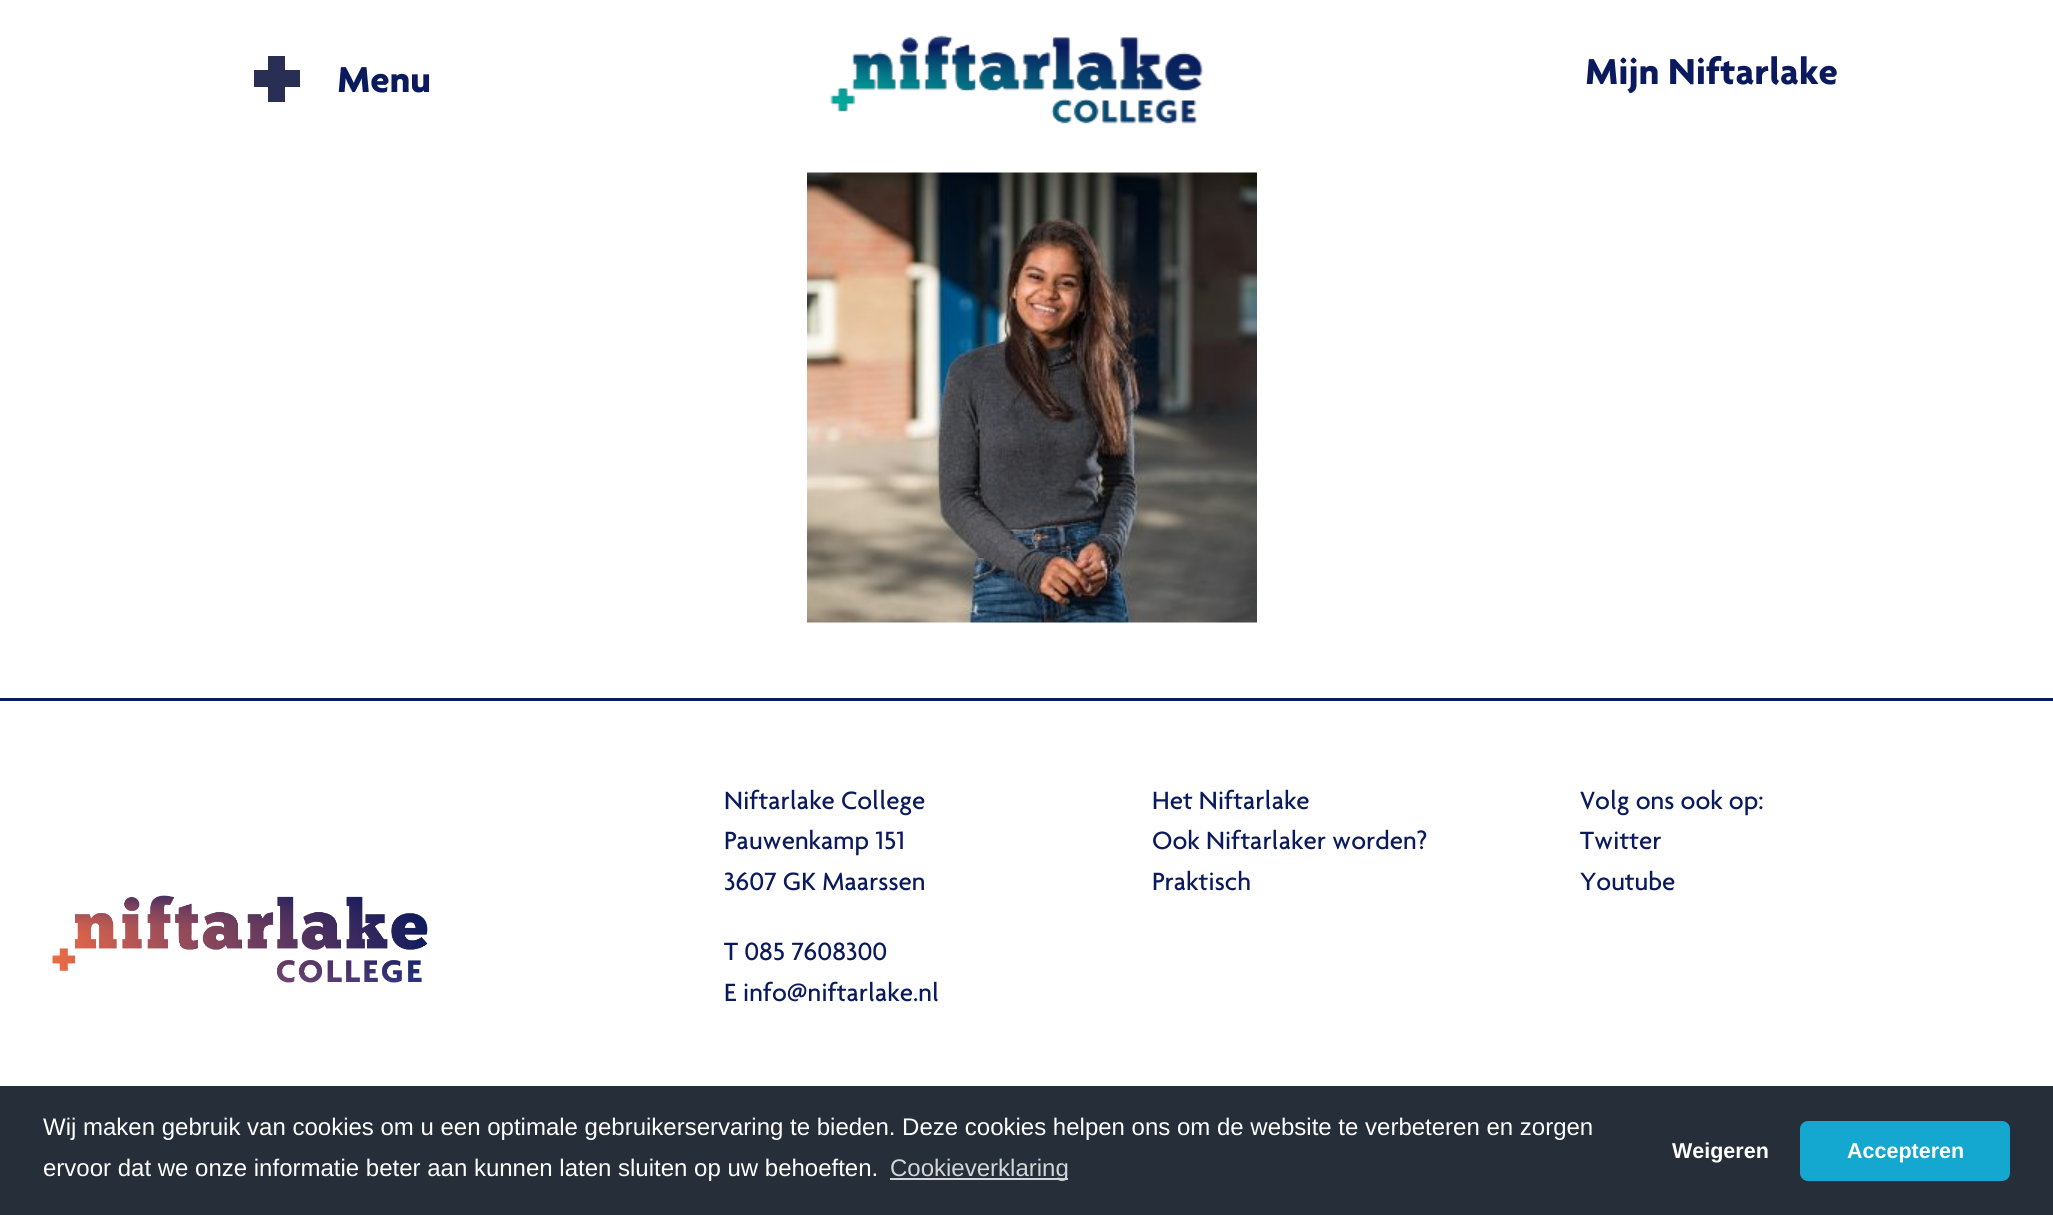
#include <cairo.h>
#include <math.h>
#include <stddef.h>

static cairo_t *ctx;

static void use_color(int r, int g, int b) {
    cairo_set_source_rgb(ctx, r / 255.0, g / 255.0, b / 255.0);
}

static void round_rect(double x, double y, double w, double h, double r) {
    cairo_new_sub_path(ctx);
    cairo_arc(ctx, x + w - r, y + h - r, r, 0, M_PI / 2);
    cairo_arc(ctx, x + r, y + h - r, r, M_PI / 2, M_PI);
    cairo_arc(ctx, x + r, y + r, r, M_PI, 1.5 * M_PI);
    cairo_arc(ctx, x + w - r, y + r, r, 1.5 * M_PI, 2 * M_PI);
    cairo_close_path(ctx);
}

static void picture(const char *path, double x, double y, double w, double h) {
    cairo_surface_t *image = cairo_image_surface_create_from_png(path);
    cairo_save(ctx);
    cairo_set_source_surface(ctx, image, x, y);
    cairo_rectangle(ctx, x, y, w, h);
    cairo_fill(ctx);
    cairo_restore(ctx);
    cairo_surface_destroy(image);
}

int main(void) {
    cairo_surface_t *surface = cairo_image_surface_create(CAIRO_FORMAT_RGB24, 2053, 1215);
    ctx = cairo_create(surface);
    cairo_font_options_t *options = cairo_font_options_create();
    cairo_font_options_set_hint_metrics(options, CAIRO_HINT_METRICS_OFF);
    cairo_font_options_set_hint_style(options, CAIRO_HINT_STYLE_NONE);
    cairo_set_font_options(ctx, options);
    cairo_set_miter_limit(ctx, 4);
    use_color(255, 255, 255);
    cairo_paint(ctx);
    use_color(41, 46, 84);
    cairo_rectangle(ctx, 268, 56, 17, 46);
    cairo_fill(ctx);
    cairo_rectangle(ctx, 254, 70, 46, 17);
    cairo_fill(ctx);
    cairo_select_font_face(ctx, "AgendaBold", CAIRO_FONT_SLANT_NORMAL, CAIRO_FONT_WEIGHT_BOLD);
    cairo_set_font_size(ctx, 39);
    use_color(10, 26, 92);
    cairo_move_to(ctx, 337, 92);
    cairo_show_text(ctx, "Menu");
    picture("img2.png", 829, 35, 375, 89);
    picture("img1.png", 817, 0, 421, 150);
    cairo_move_to(ctx, 1585, 84);
    cairo_show_text(ctx, "Mijn Niftarlake");
    picture("img3.png", 807, 172, 450, 451);
    cairo_rectangle(ctx, 0, 698, 2053, 3);
    cairo_fill(ctx);
    picture("img4.png", 52, 895, 376, 88);
    cairo_select_font_face(ctx, "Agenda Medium", CAIRO_FONT_SLANT_NORMAL, CAIRO_FONT_WEIGHT_NORMAL);
    cairo_set_font_size(ctx, 27);
    cairo_move_to(ctx, 724, 809);
    cairo_show_text(ctx, "Niftarlake College");
    cairo_move_to(ctx, 724, 849);
    cairo_show_text(ctx, "Pauwenkamp 151");
    cairo_move_to(ctx, 724, 890);
    cairo_show_text(ctx, "3607 GK Maarssen");
    cairo_move_to(ctx, 724, 960);
    cairo_show_text(ctx, "T 085 7608300");
    cairo_move_to(ctx, 724, 1001);
    cairo_show_text(ctx, "E info@niftarlake.nl");
    cairo_move_to(ctx, 1152, 809);
    cairo_show_text(ctx, "Het Niftarlake");
    cairo_move_to(ctx, 1152, 849);
    cairo_show_text(ctx, "Ook Niftarlaker worden?");
    cairo_move_to(ctx, 1152, 890);
    cairo_show_text(ctx, "Praktisch");
    cairo_move_to(ctx, 1580, 809);
    cairo_show_text(ctx, "Volg ons ook op:");
    cairo_move_to(ctx, 1580, 849);
    cairo_show_text(ctx, "Twitter");
    cairo_move_to(ctx, 1580, 890);
    cairo_show_text(ctx, "Youtube");
    use_color(37, 46, 57);
    cairo_rectangle(ctx, 0, 1086, 2053, 129);
    cairo_fill(ctx);
    cairo_select_font_face(ctx, "Liberation Sans", CAIRO_FONT_SLANT_NORMAL, CAIRO_FONT_WEIGHT_NORMAL);
    cairo_set_font_size(ctx, 24);
    use_color(255, 255, 255);
    cairo_move_to(ctx, 43, 1135);
    cairo_show_text(ctx, "Wij maken gebruik van cookies om u een optimale gebruikerservaring te bieden. Deze cookies helpen ons om de website te verbeteren en zorgen");
    cairo_move_to(ctx, 43, 1176);
    cairo_show_text(ctx, "ervoor dat we onze informatie beter aan kunnen laten sluiten op uw behoeften.");
    use_color(211, 213, 215);
    cairo_rectangle(ctx, 890, 1178, 178, 2);
    cairo_fill(ctx);
    cairo_move_to(ctx, 890, 1176);
    cairo_show_text(ctx, "Cookieverklaring");
    cairo_select_font_face(ctx, "Liberation Sans", CAIRO_FONT_SLANT_NORMAL, CAIRO_FONT_WEIGHT_BOLD);
    cairo_set_font_size(ctx, 21.5);
    use_color(255, 255, 255);
    cairo_move_to(ctx, 1672, 1158);
    cairo_show_text(ctx, "Weigeren");
    use_color(20, 167, 208);
    round_rect(1800, 1121, 210, 60, 8);
    cairo_fill(ctx);
    use_color(255, 255, 255);
    cairo_move_to(ctx, 1847, 1158);
    cairo_show_text(ctx, "Accepteren");
    cairo_surface_write_to_png(surface, "result.png");
    cairo_font_options_destroy(options);
    cairo_destroy(ctx);
    cairo_surface_destroy(surface);
    return 0;
}
